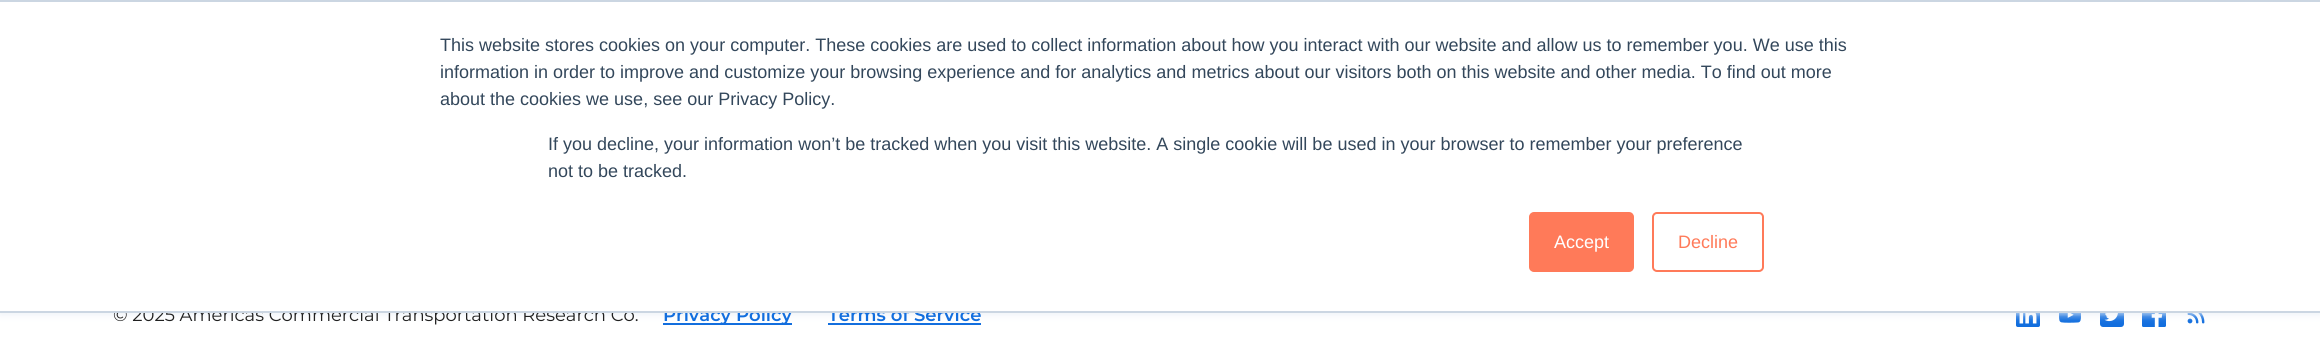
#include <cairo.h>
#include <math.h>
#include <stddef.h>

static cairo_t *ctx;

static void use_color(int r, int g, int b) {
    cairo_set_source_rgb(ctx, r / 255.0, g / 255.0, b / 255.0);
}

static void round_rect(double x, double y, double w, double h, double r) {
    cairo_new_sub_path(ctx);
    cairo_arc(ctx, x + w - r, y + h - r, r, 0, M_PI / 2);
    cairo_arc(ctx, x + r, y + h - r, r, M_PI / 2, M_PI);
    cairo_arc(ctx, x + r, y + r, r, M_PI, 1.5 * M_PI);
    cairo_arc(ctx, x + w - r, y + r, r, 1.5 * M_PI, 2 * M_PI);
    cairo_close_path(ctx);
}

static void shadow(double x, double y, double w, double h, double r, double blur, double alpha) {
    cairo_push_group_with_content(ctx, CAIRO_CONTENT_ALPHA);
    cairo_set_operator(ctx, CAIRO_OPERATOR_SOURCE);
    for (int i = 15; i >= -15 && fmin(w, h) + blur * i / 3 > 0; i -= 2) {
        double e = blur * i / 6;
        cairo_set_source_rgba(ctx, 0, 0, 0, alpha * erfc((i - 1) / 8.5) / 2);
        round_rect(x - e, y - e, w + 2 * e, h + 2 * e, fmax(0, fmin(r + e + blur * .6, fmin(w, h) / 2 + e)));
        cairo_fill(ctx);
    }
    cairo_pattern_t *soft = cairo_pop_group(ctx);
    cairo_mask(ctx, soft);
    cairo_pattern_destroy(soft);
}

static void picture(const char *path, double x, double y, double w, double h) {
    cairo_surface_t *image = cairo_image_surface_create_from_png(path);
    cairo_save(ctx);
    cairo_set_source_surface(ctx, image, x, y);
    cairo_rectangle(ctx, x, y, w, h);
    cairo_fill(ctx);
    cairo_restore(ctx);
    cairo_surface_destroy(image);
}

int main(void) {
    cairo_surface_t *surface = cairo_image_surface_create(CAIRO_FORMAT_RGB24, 2320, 350);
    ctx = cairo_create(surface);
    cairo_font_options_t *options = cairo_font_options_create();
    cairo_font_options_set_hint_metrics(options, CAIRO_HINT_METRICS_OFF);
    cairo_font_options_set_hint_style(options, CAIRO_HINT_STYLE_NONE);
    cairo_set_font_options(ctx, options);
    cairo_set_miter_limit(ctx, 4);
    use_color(255, 255, 255);
    cairo_paint(ctx);
    use_color(18, 110, 222);
    cairo_rectangle(ctx, 663, 323, 129, 2);
    cairo_fill(ctx);
    cairo_rectangle(ctx, 828, 323, 153, 2);
    cairo_fill(ctx);
    picture("img1.png", 2016, 313, 24, 14);
    picture("img2.png", 2059, 313, 22, 10);
    picture("img3.png", 2100, 313, 24, 14);
    picture("img4.png", 2142, 313, 24, 14);
    picture("img5.png", 2187, 313, 18, 11);
    use_color(234, 240, 246);
    shadow(0, 2, 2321, 312, 0, 4, 1);
    cairo_select_font_face(ctx, "Montserrat", CAIRO_FONT_SLANT_NORMAL, CAIRO_FONT_WEIGHT_NORMAL);
    cairo_set_font_size(ctx, 18);
    use_color(32, 32, 32);
    cairo_move_to(ctx, 113, 321);
    cairo_show_text(ctx, "© 2025 Americas Commercial Transportation Research Co.");
    cairo_select_font_face(ctx, "Montserrat SemiBold", CAIRO_FONT_SLANT_NORMAL, CAIRO_FONT_WEIGHT_NORMAL);
    use_color(18, 110, 222);
    cairo_move_to(ctx, 663, 321);
    cairo_show_text(ctx, "Privacy Policy");
    cairo_move_to(ctx, 828, 321);
    cairo_show_text(ctx, "Terms of Service");
    use_color(255, 255, 255);
    cairo_rectangle(ctx, 0, 2, 2320, 309);
    cairo_fill(ctx);
    use_color(203, 214, 226);
    cairo_rectangle(ctx, 0, 0, 2320, 2);
    cairo_fill(ctx);
    cairo_rectangle(ctx, 0, 311, 2320, 2);
    cairo_fill(ctx);
    cairo_select_font_face(ctx, "Liberation Sans", CAIRO_FONT_SLANT_NORMAL, CAIRO_FONT_WEIGHT_NORMAL);
    use_color(51, 71, 91);
    cairo_move_to(ctx, 440, 51);
    cairo_show_text(ctx, "This website stores cookies on your computer. These cookies are used to collect information about how you interact with our website and allow us to remember you. We use this");
    cairo_move_to(ctx, 440, 78);
    cairo_show_text(ctx, "information in order to improve and customize your browsing experience and for analytics and metrics about our visitors both on this website and other media. To find out more");
    cairo_move_to(ctx, 440, 105);
    cairo_show_text(ctx, "about the cookies we use, see our Privacy Policy.");
    cairo_move_to(ctx, 548, 150);
    cairo_show_text(ctx, "If you decline, your information won’t be tracked when you visit this website. A single cookie will be used in your browser to remember your preference");
    cairo_move_to(ctx, 548, 177);
    cairo_show_text(ctx, "not to be tracked.");
    use_color(255, 122, 89);
    round_rect(1530, 213, 103, 58, 4);
    cairo_fill_preserve(ctx);
    cairo_stroke(ctx);
    use_color(255, 255, 255);
    cairo_move_to(ctx, 1554, 248);
    cairo_show_text(ctx, "Accept");
    round_rect(1653, 213, 110, 58, 4);
    use_color(255, 122, 89);
    cairo_stroke(ctx);
    cairo_move_to(ctx, 1678, 248);
    cairo_show_text(ctx, "Decline");
    cairo_surface_write_to_png(surface, "result.png");
    cairo_font_options_destroy(options);
    cairo_destroy(ctx);
    cairo_surface_destroy(surface);
    return 0;
}
